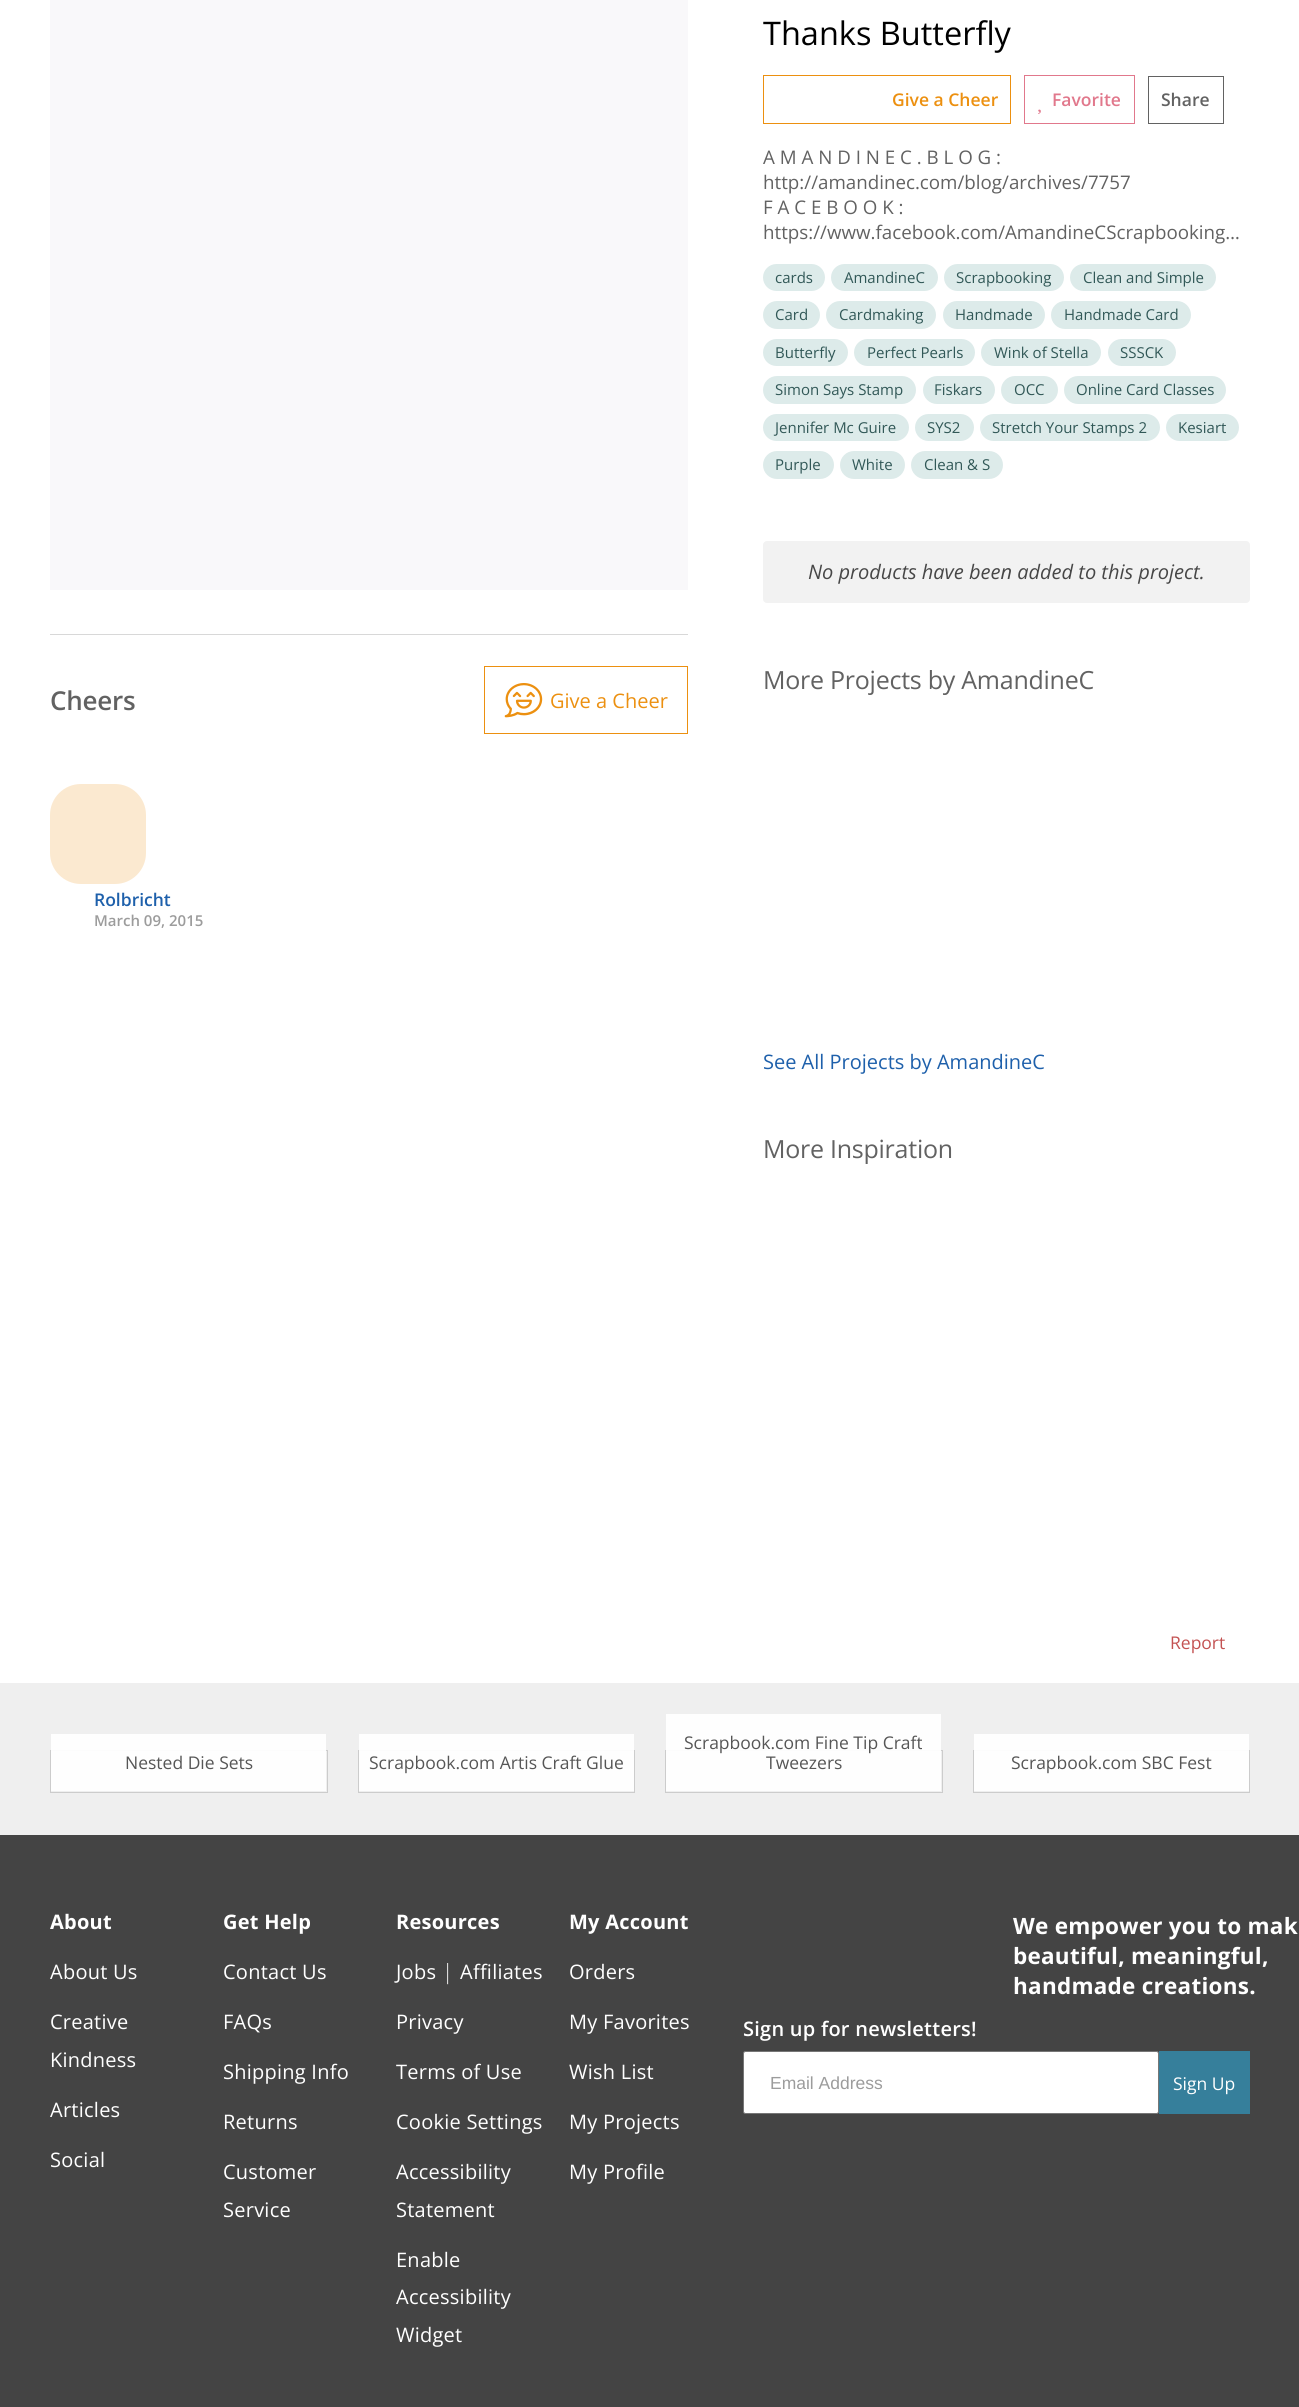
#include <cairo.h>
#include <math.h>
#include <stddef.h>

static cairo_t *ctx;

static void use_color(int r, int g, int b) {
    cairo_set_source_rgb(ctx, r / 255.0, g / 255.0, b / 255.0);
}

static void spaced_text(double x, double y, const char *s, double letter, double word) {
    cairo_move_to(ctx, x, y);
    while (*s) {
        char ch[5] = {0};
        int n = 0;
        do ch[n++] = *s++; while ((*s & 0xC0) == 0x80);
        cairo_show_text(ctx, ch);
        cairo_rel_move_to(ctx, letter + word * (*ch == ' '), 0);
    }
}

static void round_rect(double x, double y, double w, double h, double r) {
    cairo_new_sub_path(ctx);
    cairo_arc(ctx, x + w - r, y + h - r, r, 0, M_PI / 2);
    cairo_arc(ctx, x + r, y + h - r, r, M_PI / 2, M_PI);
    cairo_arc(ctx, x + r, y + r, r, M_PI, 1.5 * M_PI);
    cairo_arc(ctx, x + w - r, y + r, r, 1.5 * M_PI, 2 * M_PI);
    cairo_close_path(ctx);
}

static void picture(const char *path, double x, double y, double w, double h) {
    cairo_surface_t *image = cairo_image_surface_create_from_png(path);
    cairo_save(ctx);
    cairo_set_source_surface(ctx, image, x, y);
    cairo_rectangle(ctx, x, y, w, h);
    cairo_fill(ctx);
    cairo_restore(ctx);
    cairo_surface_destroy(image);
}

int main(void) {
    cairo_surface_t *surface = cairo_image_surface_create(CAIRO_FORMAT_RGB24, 1299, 2407);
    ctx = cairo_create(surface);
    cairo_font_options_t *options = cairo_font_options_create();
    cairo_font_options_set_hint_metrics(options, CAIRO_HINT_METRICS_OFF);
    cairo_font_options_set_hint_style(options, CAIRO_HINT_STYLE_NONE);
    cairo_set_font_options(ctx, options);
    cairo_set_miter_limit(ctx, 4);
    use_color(255, 255, 255);
    cairo_paint(ctx);
    use_color(249, 248, 250);
    cairo_rectangle(ctx, 50, 0, 638, 590);
    cairo_fill(ctx);
    use_color(216, 216, 216);
    cairo_rectangle(ctx, 50, 634, 638, 1);
    cairo_fill(ctx);
    cairo_select_font_face(ctx, "Open Sans SemiBold", CAIRO_FONT_SLANT_NORMAL, CAIRO_FONT_WEIGHT_NORMAL);
    cairo_set_font_size(ctx, 26);
    use_color(98, 98, 98);
    spaced_text(50, 710, "Cheers", -0.25, 0);
    cairo_rectangle(ctx, 484.5, 666.5, 203, 67);
    use_color(236, 144, 16);
    cairo_set_line_width(ctx, 1);
    cairo_stroke(ctx);
    picture("img1.png", 504, 683, 39, 35);
    cairo_select_font_face(ctx, "Open Sans", CAIRO_FONT_SLANT_NORMAL, CAIRO_FONT_WEIGHT_NORMAL);
    cairo_set_font_size(ctx, 20);
    cairo_move_to(ctx, 550, 708);
    cairo_show_text(ctx, "Give a Cheer");
    use_color(251, 233, 208);
    round_rect(50, 784, 96, 100, 31);
    cairo_fill(ctx);
    cairo_select_font_face(ctx, "Open Sans SemiBold", CAIRO_FONT_SLANT_NORMAL, CAIRO_FONT_WEIGHT_NORMAL);
    cairo_set_font_size(ctx, 17.5);
    use_color(30, 96, 171);
    cairo_move_to(ctx, 94, 906);
    cairo_show_text(ctx, "Rolbricht");
    cairo_set_font_size(ctx, 15);
    use_color(156, 156, 156);
    cairo_move_to(ctx, 94, 926);
    cairo_show_text(ctx, "March 09, 2015");
    cairo_select_font_face(ctx, "Open Sans", CAIRO_FONT_SLANT_NORMAL, CAIRO_FONT_WEIGHT_NORMAL);
    cairo_set_font_size(ctx, 32.5);
    use_color(0, 0, 0);
    cairo_move_to(ctx, 763, 45);
    cairo_show_text(ctx, "Thanks Butterfly");
    cairo_rectangle(ctx, 763.5, 75.5, 247, 48);
    use_color(236, 144, 16);
    cairo_stroke(ctx);
    cairo_select_font_face(ctx, "Open Sans SemiBold", CAIRO_FONT_SLANT_NORMAL, CAIRO_FONT_WEIGHT_NORMAL);
    cairo_set_font_size(ctx, 17.5);
    cairo_move_to(ctx, 892, 106);
    cairo_show_text(ctx, "Give a Cheer");
    cairo_rectangle(ctx, 1024.5, 75.5, 110, 48);
    use_color(225, 120, 140);
    cairo_stroke(ctx);
    cairo_move_to(ctx, 1052, 106);
    cairo_show_text(ctx, "Favorite");
    picture("img2.png", 1038, 109, 3, 5);
    cairo_rectangle(ctx, 1148.5, 76.5, 75, 47);
    use_color(98, 98, 98);
    cairo_stroke(ctx);
    cairo_move_to(ctx, 1161, 106);
    cairo_show_text(ctx, "Share");
    cairo_select_font_face(ctx, "Open Sans", CAIRO_FONT_SLANT_NORMAL, CAIRO_FONT_WEIGHT_NORMAL);
    cairo_set_font_size(ctx, 18.75);
    cairo_move_to(ctx, 763, 164);
    cairo_show_text(ctx, "A M A N D I N E C . B L O G :");
    cairo_move_to(ctx, 763, 189);
    cairo_show_text(ctx, "http://amandinec.com/blog/archives/7757");
    cairo_move_to(ctx, 763, 214);
    cairo_show_text(ctx, "F A C E B O O K :");
    cairo_move_to(ctx, 763, 239);
    cairo_show_text(ctx, "https://www.facebook.com/AmandineCScrapbooking…");
    use_color(221, 235, 234);
    round_rect(763, 264, 62, 27, 13.5);
    cairo_fill(ctx);
    cairo_set_font_size(ctx, 15);
    use_color(49, 88, 87);
    cairo_move_to(ctx, 775, 283);
    cairo_show_text(ctx, "cards");
    use_color(221, 235, 234);
    round_rect(831, 264, 107, 27, 13.5);
    cairo_fill(ctx);
    use_color(49, 88, 87);
    cairo_move_to(ctx, 844, 283);
    cairo_show_text(ctx, "AmandineC");
    use_color(221, 235, 234);
    round_rect(944, 264, 120, 27, 13.5);
    cairo_fill(ctx);
    use_color(49, 88, 87);
    cairo_move_to(ctx, 956, 283);
    cairo_show_text(ctx, "Scrapbooking");
    use_color(221, 235, 234);
    round_rect(1070, 264, 146, 27, 13.5);
    cairo_fill(ctx);
    use_color(49, 88, 87);
    cairo_move_to(ctx, 1083, 283);
    cairo_show_text(ctx, "Clean and Simple");
    use_color(221, 235, 234);
    round_rect(763, 301, 57, 28, 14);
    cairo_fill(ctx);
    use_color(49, 88, 87);
    cairo_move_to(ctx, 775, 320);
    cairo_show_text(ctx, "Card");
    use_color(221, 235, 234);
    round_rect(826, 301, 110, 28, 14);
    cairo_fill(ctx);
    use_color(49, 88, 87);
    cairo_move_to(ctx, 839, 320);
    cairo_show_text(ctx, "Cardmaking");
    use_color(221, 235, 234);
    round_rect(943, 301, 102, 28, 14);
    cairo_fill(ctx);
    use_color(49, 88, 87);
    cairo_move_to(ctx, 955, 320);
    cairo_show_text(ctx, "Handmade");
    use_color(221, 235, 234);
    round_rect(1051, 301, 140, 28, 14);
    cairo_fill(ctx);
    use_color(49, 88, 87);
    cairo_move_to(ctx, 1064, 320);
    cairo_show_text(ctx, "Handmade Card");
    use_color(221, 235, 234);
    round_rect(763, 339, 85, 27, 13.5);
    cairo_fill(ctx);
    use_color(49, 88, 87);
    cairo_move_to(ctx, 775, 358);
    cairo_show_text(ctx, "Butterfly");
    use_color(221, 235, 234);
    round_rect(854, 339, 121, 27, 13.5);
    cairo_fill(ctx);
    use_color(49, 88, 87);
    cairo_move_to(ctx, 867, 358);
    cairo_show_text(ctx, "Perfect Pearls");
    use_color(221, 235, 234);
    round_rect(981, 339, 120, 27, 13.5);
    cairo_fill(ctx);
    use_color(49, 88, 87);
    cairo_move_to(ctx, 994, 358);
    cairo_show_text(ctx, "Wink of Stella");
    use_color(221, 235, 234);
    round_rect(1108, 339, 68, 27, 13.5);
    cairo_fill(ctx);
    use_color(49, 88, 87);
    cairo_move_to(ctx, 1120, 358);
    cairo_show_text(ctx, "SSSCK");
    use_color(221, 235, 234);
    round_rect(763, 376, 153, 28, 14);
    cairo_fill(ctx);
    use_color(49, 88, 87);
    cairo_move_to(ctx, 775, 395);
    cairo_show_text(ctx, "Simon Says Stamp");
    use_color(221, 235, 234);
    round_rect(923, 376, 72, 28, 14);
    cairo_fill(ctx);
    use_color(49, 88, 87);
    cairo_move_to(ctx, 934, 395);
    cairo_show_text(ctx, "Fiskars");
    use_color(221, 235, 234);
    round_rect(1001, 376, 57, 28, 14);
    cairo_fill(ctx);
    use_color(49, 88, 87);
    cairo_move_to(ctx, 1014, 395);
    cairo_show_text(ctx, "OCC");
    use_color(221, 235, 234);
    round_rect(1064, 376, 162, 28, 14);
    cairo_fill(ctx);
    use_color(49, 88, 87);
    cairo_move_to(ctx, 1076, 395);
    cairo_show_text(ctx, "Online Card Classes");
    use_color(221, 235, 234);
    round_rect(763, 414, 146, 27, 13.5);
    cairo_fill(ctx);
    use_color(49, 88, 87);
    cairo_move_to(ctx, 775, 433);
    cairo_show_text(ctx, "Jennifer Mc Guire");
    use_color(221, 235, 234);
    round_rect(915, 414, 59, 27, 13.5);
    cairo_fill(ctx);
    use_color(49, 88, 87);
    cairo_move_to(ctx, 927, 433);
    cairo_show_text(ctx, "SYS2");
    use_color(221, 235, 234);
    round_rect(980, 414, 180, 27, 13.5);
    cairo_fill(ctx);
    use_color(49, 88, 87);
    cairo_move_to(ctx, 992, 433);
    cairo_show_text(ctx, "Stretch Your Stamps 2");
    use_color(221, 235, 234);
    round_rect(1166, 414, 73, 27, 13.5);
    cairo_fill(ctx);
    use_color(49, 88, 87);
    cairo_move_to(ctx, 1178, 433);
    cairo_show_text(ctx, "Kesiart");
    use_color(221, 235, 234);
    round_rect(763, 451, 71, 28, 14);
    cairo_fill(ctx);
    use_color(49, 88, 87);
    cairo_move_to(ctx, 775, 470);
    cairo_show_text(ctx, "Purple");
    use_color(221, 235, 234);
    round_rect(840, 451, 65, 28, 14);
    cairo_fill(ctx);
    use_color(49, 88, 87);
    cairo_move_to(ctx, 852, 470);
    cairo_show_text(ctx, "White");
    use_color(221, 235, 234);
    round_rect(911, 451, 92, 28, 14);
    cairo_fill(ctx);
    use_color(49, 88, 87);
    cairo_move_to(ctx, 924, 470);
    cairo_show_text(ctx, "Clean & S");
    use_color(242, 242, 242);
    round_rect(763, 541, 487, 62, 4);
    cairo_fill(ctx);
    cairo_select_font_face(ctx, "Open Sans", CAIRO_FONT_SLANT_ITALIC, CAIRO_FONT_WEIGHT_NORMAL);
    cairo_set_font_size(ctx, 20);
    use_color(71, 71, 71);
    cairo_move_to(ctx, 808, 579);
    cairo_show_text(ctx, "No products have been added to this project.");
    cairo_select_font_face(ctx, "Open Sans", CAIRO_FONT_SLANT_NORMAL, CAIRO_FONT_WEIGHT_NORMAL);
    cairo_set_font_size(ctx, 25);
    use_color(98, 98, 98);
    spaced_text(763, 689, "More Projects by AmandineC", -0.25, 0);
    cairo_set_font_size(ctx, 20);
    use_color(30, 96, 171);
    cairo_move_to(ctx, 763, 1069);
    cairo_show_text(ctx, "See All Projects by AmandineC");
    cairo_set_font_size(ctx, 25);
    use_color(98, 98, 98);
    spaced_text(763, 1158, "More Inspiration", -0.25, 0);
    cairo_set_font_size(ctx, 17.5);
    use_color(195, 82, 82);
    cairo_move_to(ctx, 1170, 1649);
    cairo_show_text(ctx, "Report");
    use_color(68, 68, 68);
    cairo_rectangle(ctx, 0, 1835, 1299, 572);
    cairo_fill(ctx);
    use_color(239, 239, 239);
    cairo_rectangle(ctx, 0, 1683, 1299, 152);
    cairo_fill(ctx);
    cairo_rectangle(ctx, 50.5, 1750.5, 277, 42);
    use_color(204, 204, 204);
    cairo_stroke(ctx);
    cairo_set_source_rgba(ctx, 1, 1, 1, 0.93);
    cairo_rectangle(ctx, 51, 1734, 275, 57);
    cairo_fill(ctx);
    use_color(86, 86, 86);
    cairo_move_to(ctx, 125, 1769);
    cairo_show_text(ctx, "Nested Die Sets");
    cairo_rectangle(ctx, 358.5, 1750.5, 276, 42);
    use_color(204, 204, 204);
    cairo_stroke(ctx);
    cairo_set_source_rgba(ctx, 1, 1, 1, 0.93);
    cairo_rectangle(ctx, 359, 1734, 275, 57);
    cairo_fill(ctx);
    use_color(86, 86, 86);
    cairo_move_to(ctx, 369, 1769);
    cairo_show_text(ctx, "Scrapbook.com Artis Craft Glue");
    cairo_rectangle(ctx, 665.5, 1750.5, 277, 42);
    use_color(204, 204, 204);
    cairo_stroke(ctx);
    cairo_set_source_rgba(ctx, 1, 1, 1, 0.93);
    cairo_rectangle(ctx, 666, 1714, 275, 77);
    cairo_fill(ctx);
    use_color(86, 86, 86);
    cairo_move_to(ctx, 684, 1749);
    cairo_show_text(ctx, "Scrapbook.com Fine Tip Craft");
    cairo_move_to(ctx, 766, 1769);
    cairo_show_text(ctx, "Tweezers");
    cairo_rectangle(ctx, 973.5, 1750.5, 276, 42);
    use_color(204, 204, 204);
    cairo_stroke(ctx);
    cairo_set_source_rgba(ctx, 1, 1, 1, 0.93);
    cairo_rectangle(ctx, 974, 1734, 275, 57);
    cairo_fill(ctx);
    use_color(86, 86, 86);
    cairo_move_to(ctx, 1011, 1769);
    cairo_show_text(ctx, "Scrapbook.com SBC Fest");
    cairo_select_font_face(ctx, "Open Sans", CAIRO_FONT_SLANT_NORMAL, CAIRO_FONT_WEIGHT_BOLD);
    cairo_set_font_size(ctx, 20);
    use_color(255, 255, 255);
    spaced_text(50, 1929, "About", 0.25, 0);
    cairo_select_font_face(ctx, "Open Sans", CAIRO_FONT_SLANT_NORMAL, CAIRO_FONT_WEIGHT_NORMAL);
    spaced_text(50, 1979, "About Us", 0.25, 0);
    spaced_text(50, 2029, "Creative", 0.25, 0);
    spaced_text(50, 2067, "Kindness", 0.25, 0);
    spaced_text(50, 2117, "Articles", 0.25, 0);
    spaced_text(50, 2167, "Social", 0.25, 0);
    cairo_select_font_face(ctx, "Open Sans", CAIRO_FONT_SLANT_NORMAL, CAIRO_FONT_WEIGHT_BOLD);
    spaced_text(223, 1929, "Get Help", 0.25, 0);
    cairo_select_font_face(ctx, "Open Sans", CAIRO_FONT_SLANT_NORMAL, CAIRO_FONT_WEIGHT_NORMAL);
    spaced_text(223, 1979, "Contact Us", 0.25, 0);
    spaced_text(223, 2029, "FAQs", 0.25, 0);
    spaced_text(223, 2079, "Shipping Info", 0.25, 0);
    spaced_text(223, 2129, "Returns", 0.25, 0);
    spaced_text(223, 2179, "Customer", 0.25, 0);
    spaced_text(223, 2217, "Service", 0.25, 0);
    cairo_select_font_face(ctx, "Open Sans", CAIRO_FONT_SLANT_NORMAL, CAIRO_FONT_WEIGHT_BOLD);
    spaced_text(396, 1929, "Resources", 0.25, 0);
    cairo_select_font_face(ctx, "Open Sans", CAIRO_FONT_SLANT_NORMAL, CAIRO_FONT_WEIGHT_NORMAL);
    spaced_text(396, 1979, "Jobs", 0.25, 0);
    cairo_select_font_face(ctx, "Open Sans Light", CAIRO_FONT_SLANT_NORMAL, CAIRO_FONT_WEIGHT_NORMAL);
    cairo_set_font_size(ctx, 21);
    spaced_text(442, 1979, "|", 0.25, 0);
    cairo_select_font_face(ctx, "Open Sans", CAIRO_FONT_SLANT_NORMAL, CAIRO_FONT_WEIGHT_NORMAL);
    cairo_set_font_size(ctx, 20);
    spaced_text(460, 1979, "Affiliates", 0.25, 0);
    spaced_text(396, 2029, "Privacy", 0.25, 0);
    spaced_text(396, 2079, "Terms of Use", 0.25, 0);
    spaced_text(396, 2129, "Cookie Settings", 0.25, 0);
    spaced_text(396, 2179, "Accessibility", 0.25, 0);
    spaced_text(396, 2217, "Statement", 0.25, 0);
    spaced_text(396, 2267, "Enable", 0.25, 0);
    spaced_text(396, 2304, "Accessibility", 0.25, 0);
    spaced_text(396, 2342, "Widget", 0.25, 0);
    cairo_select_font_face(ctx, "Open Sans", CAIRO_FONT_SLANT_NORMAL, CAIRO_FONT_WEIGHT_BOLD);
    spaced_text(569, 1929, "My Account", 0.25, 0);
    cairo_select_font_face(ctx, "Open Sans", CAIRO_FONT_SLANT_NORMAL, CAIRO_FONT_WEIGHT_NORMAL);
    spaced_text(569, 1979, "Orders", 0.25, 0);
    spaced_text(569, 2029, "My Favorites", 0.25, 0);
    spaced_text(569, 2079, "Wish List", 0.25, 0);
    spaced_text(569, 2129, "My Projects", 0.25, 0);
    spaced_text(569, 2179, "My Profile", 0.25, 0);
    cairo_select_font_face(ctx, "Open Sans", CAIRO_FONT_SLANT_NORMAL, CAIRO_FONT_WEIGHT_BOLD);
    cairo_set_font_size(ctx, 22.5);
    spaced_text(1013, 1934, "We empower you to mak", 0.25, 0);
    spaced_text(1013, 1964, "beautiful, meaningful,", 0.25, 0);
    spaced_text(1013, 1994, "handmade creations.", 0.25, 0);
    cairo_select_font_face(ctx, "Open Sans SemiBold", CAIRO_FONT_SLANT_NORMAL, CAIRO_FONT_WEIGHT_NORMAL);
    cairo_set_font_size(ctx, 20);
    spaced_text(743, 2036, "Sign up for newsletters!", 0.25, 0);
    round_rect(743.5, 2051.5, 415, 62, 2);
    cairo_fill_preserve(ctx);
    use_color(118, 118, 118);
    cairo_stroke(ctx);
    cairo_select_font_face(ctx, "Liberation Sans", CAIRO_FONT_SLANT_NORMAL, CAIRO_FONT_WEIGHT_NORMAL);
    cairo_set_font_size(ctx, 17.5);
    use_color(156, 156, 156);
    cairo_move_to(ctx, 770, 2089);
    cairo_show_text(ctx, "Email Address");
    use_color(54, 127, 155);
    cairo_rectangle(ctx, 1159, 2051, 91, 63);
    cairo_fill(ctx);
    cairo_select_font_face(ctx, "Open Sans", CAIRO_FONT_SLANT_NORMAL, CAIRO_FONT_WEIGHT_NORMAL);
    use_color(255, 255, 255);
    cairo_move_to(ctx, 1173, 2090);
    cairo_show_text(ctx, "Sign Up");
    cairo_surface_write_to_png(surface, "result.png");
    cairo_font_options_destroy(options);
    cairo_destroy(ctx);
    cairo_surface_destroy(surface);
    return 0;
}
